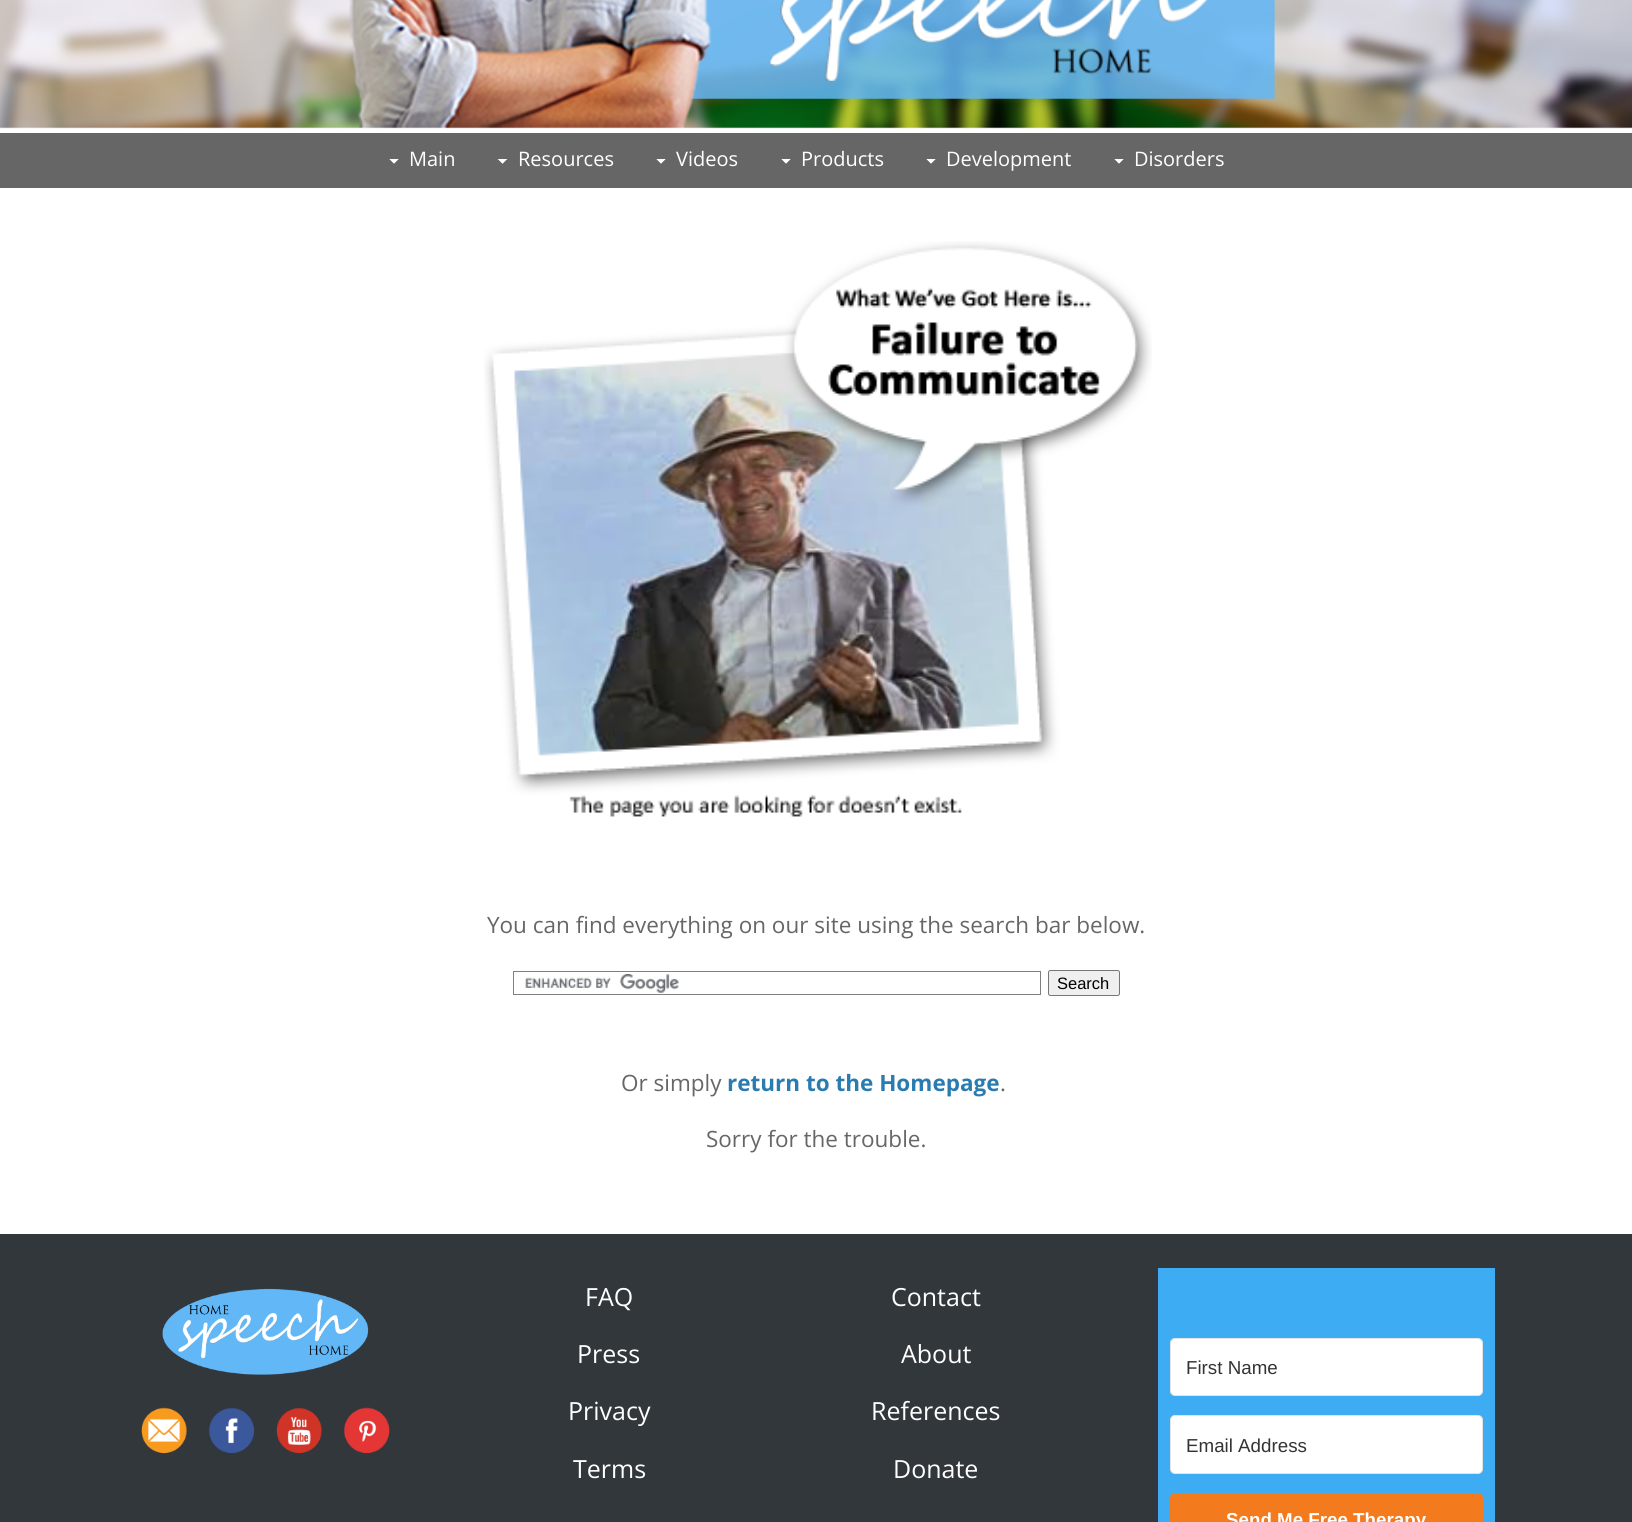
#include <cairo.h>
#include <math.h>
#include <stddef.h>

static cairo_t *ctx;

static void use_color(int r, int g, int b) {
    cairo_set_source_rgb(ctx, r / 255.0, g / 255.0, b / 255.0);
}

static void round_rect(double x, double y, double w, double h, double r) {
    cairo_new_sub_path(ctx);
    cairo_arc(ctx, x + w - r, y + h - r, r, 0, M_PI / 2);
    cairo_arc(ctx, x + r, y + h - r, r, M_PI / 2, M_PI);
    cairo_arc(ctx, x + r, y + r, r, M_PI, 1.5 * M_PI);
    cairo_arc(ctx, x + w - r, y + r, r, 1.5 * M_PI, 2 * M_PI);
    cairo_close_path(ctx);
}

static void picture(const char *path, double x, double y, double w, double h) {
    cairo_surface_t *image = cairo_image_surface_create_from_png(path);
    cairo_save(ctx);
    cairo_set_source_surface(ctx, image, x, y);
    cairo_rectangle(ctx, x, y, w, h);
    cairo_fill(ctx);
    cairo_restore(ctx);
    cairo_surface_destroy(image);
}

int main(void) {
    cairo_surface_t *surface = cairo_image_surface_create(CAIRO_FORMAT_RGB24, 1632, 1522);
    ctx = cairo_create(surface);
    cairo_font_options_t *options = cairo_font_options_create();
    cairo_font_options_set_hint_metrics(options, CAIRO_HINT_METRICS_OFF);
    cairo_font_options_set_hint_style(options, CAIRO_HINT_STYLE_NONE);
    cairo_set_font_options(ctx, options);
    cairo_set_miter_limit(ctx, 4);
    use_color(255, 255, 255);
    cairo_paint(ctx);
    picture("img1.png", 0, 0, 1632, 129);
    use_color(102, 102, 102);
    cairo_rectangle(ctx, 0, 133, 1632, 55);
    cairo_fill(ctx);
    use_color(255, 255, 255);
    cairo_new_path(ctx);
    cairo_move_to(ctx, 389, 159);
    cairo_line_to(ctx, 399, 159);
    cairo_line_to(ctx, 394, 164);
    cairo_close_path(ctx);
    cairo_fill(ctx);
    use_color(102, 102, 102);
    cairo_new_path(ctx);
    cairo_move_to(ctx, 399, 159);
    cairo_line_to(ctx, 399, 169);
    cairo_line_to(ctx, 394, 164);
    cairo_close_path(ctx);
    cairo_move_to(ctx, 389, 169);
    cairo_line_to(ctx, 389, 159);
    cairo_line_to(ctx, 394, 164);
    cairo_close_path(ctx);
    cairo_fill(ctx);
    cairo_select_font_face(ctx, "Open Sans", CAIRO_FONT_SLANT_NORMAL, CAIRO_FONT_WEIGHT_NORMAL);
    cairo_set_font_size(ctx, 20);
    use_color(255, 255, 255);
    cairo_move_to(ctx, 409, 166);
    cairo_show_text(ctx, "Main");
    cairo_new_path(ctx);
    cairo_move_to(ctx, 497.5, 159);
    cairo_line_to(ctx, 507.5, 159);
    cairo_line_to(ctx, 502.5, 164);
    cairo_close_path(ctx);
    cairo_fill(ctx);
    use_color(102, 102, 102);
    cairo_new_path(ctx);
    cairo_move_to(ctx, 507.5, 159);
    cairo_line_to(ctx, 507.5, 169);
    cairo_line_to(ctx, 502.5, 164);
    cairo_close_path(ctx);
    cairo_fill(ctx);
    cairo_new_path(ctx);
    cairo_move_to(ctx, 497.5, 169);
    cairo_line_to(ctx, 497.5, 159);
    cairo_line_to(ctx, 502.5, 164);
    cairo_close_path(ctx);
    cairo_fill(ctx);
    use_color(255, 255, 255);
    cairo_move_to(ctx, 518, 166);
    cairo_show_text(ctx, "Resources");
    cairo_new_path(ctx);
    cairo_move_to(ctx, 656, 159);
    cairo_line_to(ctx, 666, 159);
    cairo_line_to(ctx, 661, 164);
    cairo_close_path(ctx);
    cairo_fill(ctx);
    use_color(102, 102, 102);
    cairo_new_path(ctx);
    cairo_move_to(ctx, 666, 159);
    cairo_line_to(ctx, 666, 169);
    cairo_line_to(ctx, 661, 164);
    cairo_close_path(ctx);
    cairo_move_to(ctx, 656, 169);
    cairo_line_to(ctx, 656, 159);
    cairo_line_to(ctx, 661, 164);
    cairo_close_path(ctx);
    cairo_fill(ctx);
    use_color(255, 255, 255);
    cairo_move_to(ctx, 676, 166);
    cairo_show_text(ctx, "Videos");
    cairo_new_path(ctx);
    cairo_move_to(ctx, 781, 159);
    cairo_line_to(ctx, 791, 159);
    cairo_line_to(ctx, 786, 164);
    cairo_close_path(ctx);
    cairo_fill(ctx);
    use_color(102, 102, 102);
    cairo_new_path(ctx);
    cairo_move_to(ctx, 791, 159);
    cairo_line_to(ctx, 791, 169);
    cairo_line_to(ctx, 786, 164);
    cairo_close_path(ctx);
    cairo_move_to(ctx, 781, 169);
    cairo_line_to(ctx, 781, 159);
    cairo_line_to(ctx, 786, 164);
    cairo_close_path(ctx);
    cairo_fill(ctx);
    use_color(255, 255, 255);
    cairo_move_to(ctx, 801, 166);
    cairo_show_text(ctx, "Products");
    cairo_new_path(ctx);
    cairo_move_to(ctx, 926, 159);
    cairo_line_to(ctx, 936, 159);
    cairo_line_to(ctx, 931, 164);
    cairo_close_path(ctx);
    cairo_fill(ctx);
    use_color(102, 102, 102);
    cairo_new_path(ctx);
    cairo_move_to(ctx, 936, 159);
    cairo_line_to(ctx, 936, 169);
    cairo_line_to(ctx, 931, 164);
    cairo_close_path(ctx);
    cairo_move_to(ctx, 926, 169);
    cairo_line_to(ctx, 926, 159);
    cairo_line_to(ctx, 931, 164);
    cairo_close_path(ctx);
    cairo_fill(ctx);
    use_color(255, 255, 255);
    cairo_move_to(ctx, 946, 166);
    cairo_show_text(ctx, "Development");
    cairo_new_path(ctx);
    cairo_move_to(ctx, 1114, 159);
    cairo_line_to(ctx, 1124, 159);
    cairo_line_to(ctx, 1119, 164);
    cairo_close_path(ctx);
    cairo_fill(ctx);
    use_color(102, 102, 102);
    cairo_new_path(ctx);
    cairo_move_to(ctx, 1124, 159);
    cairo_line_to(ctx, 1124, 169);
    cairo_line_to(ctx, 1119, 164);
    cairo_close_path(ctx);
    cairo_move_to(ctx, 1114, 169);
    cairo_line_to(ctx, 1114, 159);
    cairo_line_to(ctx, 1119, 164);
    cairo_close_path(ctx);
    cairo_fill(ctx);
    use_color(255, 255, 255);
    cairo_move_to(ctx, 1134, 166);
    cairo_show_text(ctx, "Disorders");
    picture("img2.png", 484, 241, 668, 576);
    cairo_set_font_size(ctx, 22.5);
    use_color(102, 102, 102);
    cairo_move_to(ctx, 487, 933);
    cairo_show_text(ctx, "You can find everything on our site using the search bar below.");
    picture("img3.png", 525, 974, 154, 19);
    cairo_rectangle(ctx, 513.5, 971.5, 527, 23);
    use_color(128, 128, 128);
    cairo_set_line_width(ctx, 1);
    cairo_stroke(ctx);
    use_color(239, 239, 239);
    round_rect(1048.5, 970.5, 71, 25, 2);
    cairo_fill_preserve(ctx);
    use_color(118, 118, 118);
    cairo_stroke(ctx);
    cairo_select_font_face(ctx, "Liberation Sans", CAIRO_FONT_SLANT_NORMAL, CAIRO_FONT_WEIGHT_NORMAL);
    cairo_set_font_size(ctx, 16.5);
    use_color(0, 0, 0);
    cairo_move_to(ctx, 1057, 989);
    cairo_show_text(ctx, "Search");
    cairo_select_font_face(ctx, "Open Sans", CAIRO_FONT_SLANT_NORMAL, CAIRO_FONT_WEIGHT_NORMAL);
    cairo_set_font_size(ctx, 22.5);
    use_color(102, 102, 102);
    cairo_move_to(ctx, 621, 1091);
    cairo_show_text(ctx, "Or simply");
    cairo_select_font_face(ctx, "Open Sans", CAIRO_FONT_SLANT_NORMAL, CAIRO_FONT_WEIGHT_BOLD);
    use_color(42, 124, 176);
    cairo_move_to(ctx, 727, 1091);
    cairo_show_text(ctx, "return to the Homepage");
    cairo_select_font_face(ctx, "Open Sans", CAIRO_FONT_SLANT_NORMAL, CAIRO_FONT_WEIGHT_NORMAL);
    use_color(102, 102, 102);
    cairo_move_to(ctx, 1000, 1091);
    cairo_show_text(ctx, ".");
    cairo_move_to(ctx, 706, 1147);
    cairo_show_text(ctx, "Sorry for the trouble.");
    use_color(50, 55, 60);
    cairo_rectangle(ctx, 0, 1234, 1632, 288);
    cairo_fill(ctx);
    picture("img4.png", 162, 1288, 207, 87);
    picture("img5.png", 141, 1407, 46, 47);
    picture("img6.png", 208, 1407, 47, 47);
    picture("img7.png", 276, 1407, 46, 47);
    picture("img8.png", 343, 1407, 47, 47);
    cairo_set_font_size(ctx, 25);
    use_color(255, 255, 255);
    cairo_move_to(ctx, 585, 1306);
    cairo_show_text(ctx, "FAQ");
    cairo_move_to(ctx, 577, 1363);
    cairo_show_text(ctx, "Press");
    cairo_move_to(ctx, 568, 1420);
    cairo_show_text(ctx, "Privacy");
    cairo_move_to(ctx, 573, 1478);
    cairo_show_text(ctx, "Terms");
    cairo_move_to(ctx, 891, 1306);
    cairo_show_text(ctx, "Contact");
    cairo_move_to(ctx, 901, 1363);
    cairo_show_text(ctx, "About");
    cairo_move_to(ctx, 871, 1420);
    cairo_show_text(ctx, "References");
    cairo_move_to(ctx, 893, 1478);
    cairo_show_text(ctx, "Donate");
    use_color(61, 172, 242);
    cairo_rectangle(ctx, 1158, 1268, 337, 254);
    cairo_fill(ctx);
    use_color(255, 255, 255);
    round_rect(1170.5, 1338.5, 312, 57, 4.5);
    cairo_fill_preserve(ctx);
    use_color(227, 227, 227);
    cairo_stroke(ctx);
    cairo_select_font_face(ctx, "Liberation Sans", CAIRO_FONT_SLANT_NORMAL, CAIRO_FONT_WEIGHT_NORMAL);
    cairo_set_font_size(ctx, 18.75);
    use_color(51, 51, 51);
    cairo_move_to(ctx, 1186, 1374);
    cairo_show_text(ctx, "First Name");
    use_color(255, 255, 255);
    round_rect(1170.5, 1415.5, 312, 58, 4.5);
    cairo_fill_preserve(ctx);
    use_color(227, 227, 227);
    cairo_stroke(ctx);
    use_color(51, 51, 51);
    cairo_move_to(ctx, 1186, 1452);
    cairo_show_text(ctx, "Email Address");
    use_color(244, 122, 30);
    round_rect(1170, 1493, 313, 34, 5);
    cairo_fill(ctx);
    cairo_select_font_face(ctx, "Liberation Sans", CAIRO_FONT_SLANT_NORMAL, CAIRO_FONT_WEIGHT_BOLD);
    use_color(255, 255, 255);
    cairo_move_to(ctx, 1226, 1526);
    cairo_show_text(ctx, "Send Me Free Therapy");
    cairo_surface_write_to_png(surface, "result.png");
    cairo_font_options_destroy(options);
    cairo_destroy(ctx);
    cairo_surface_destroy(surface);
    return 0;
}
